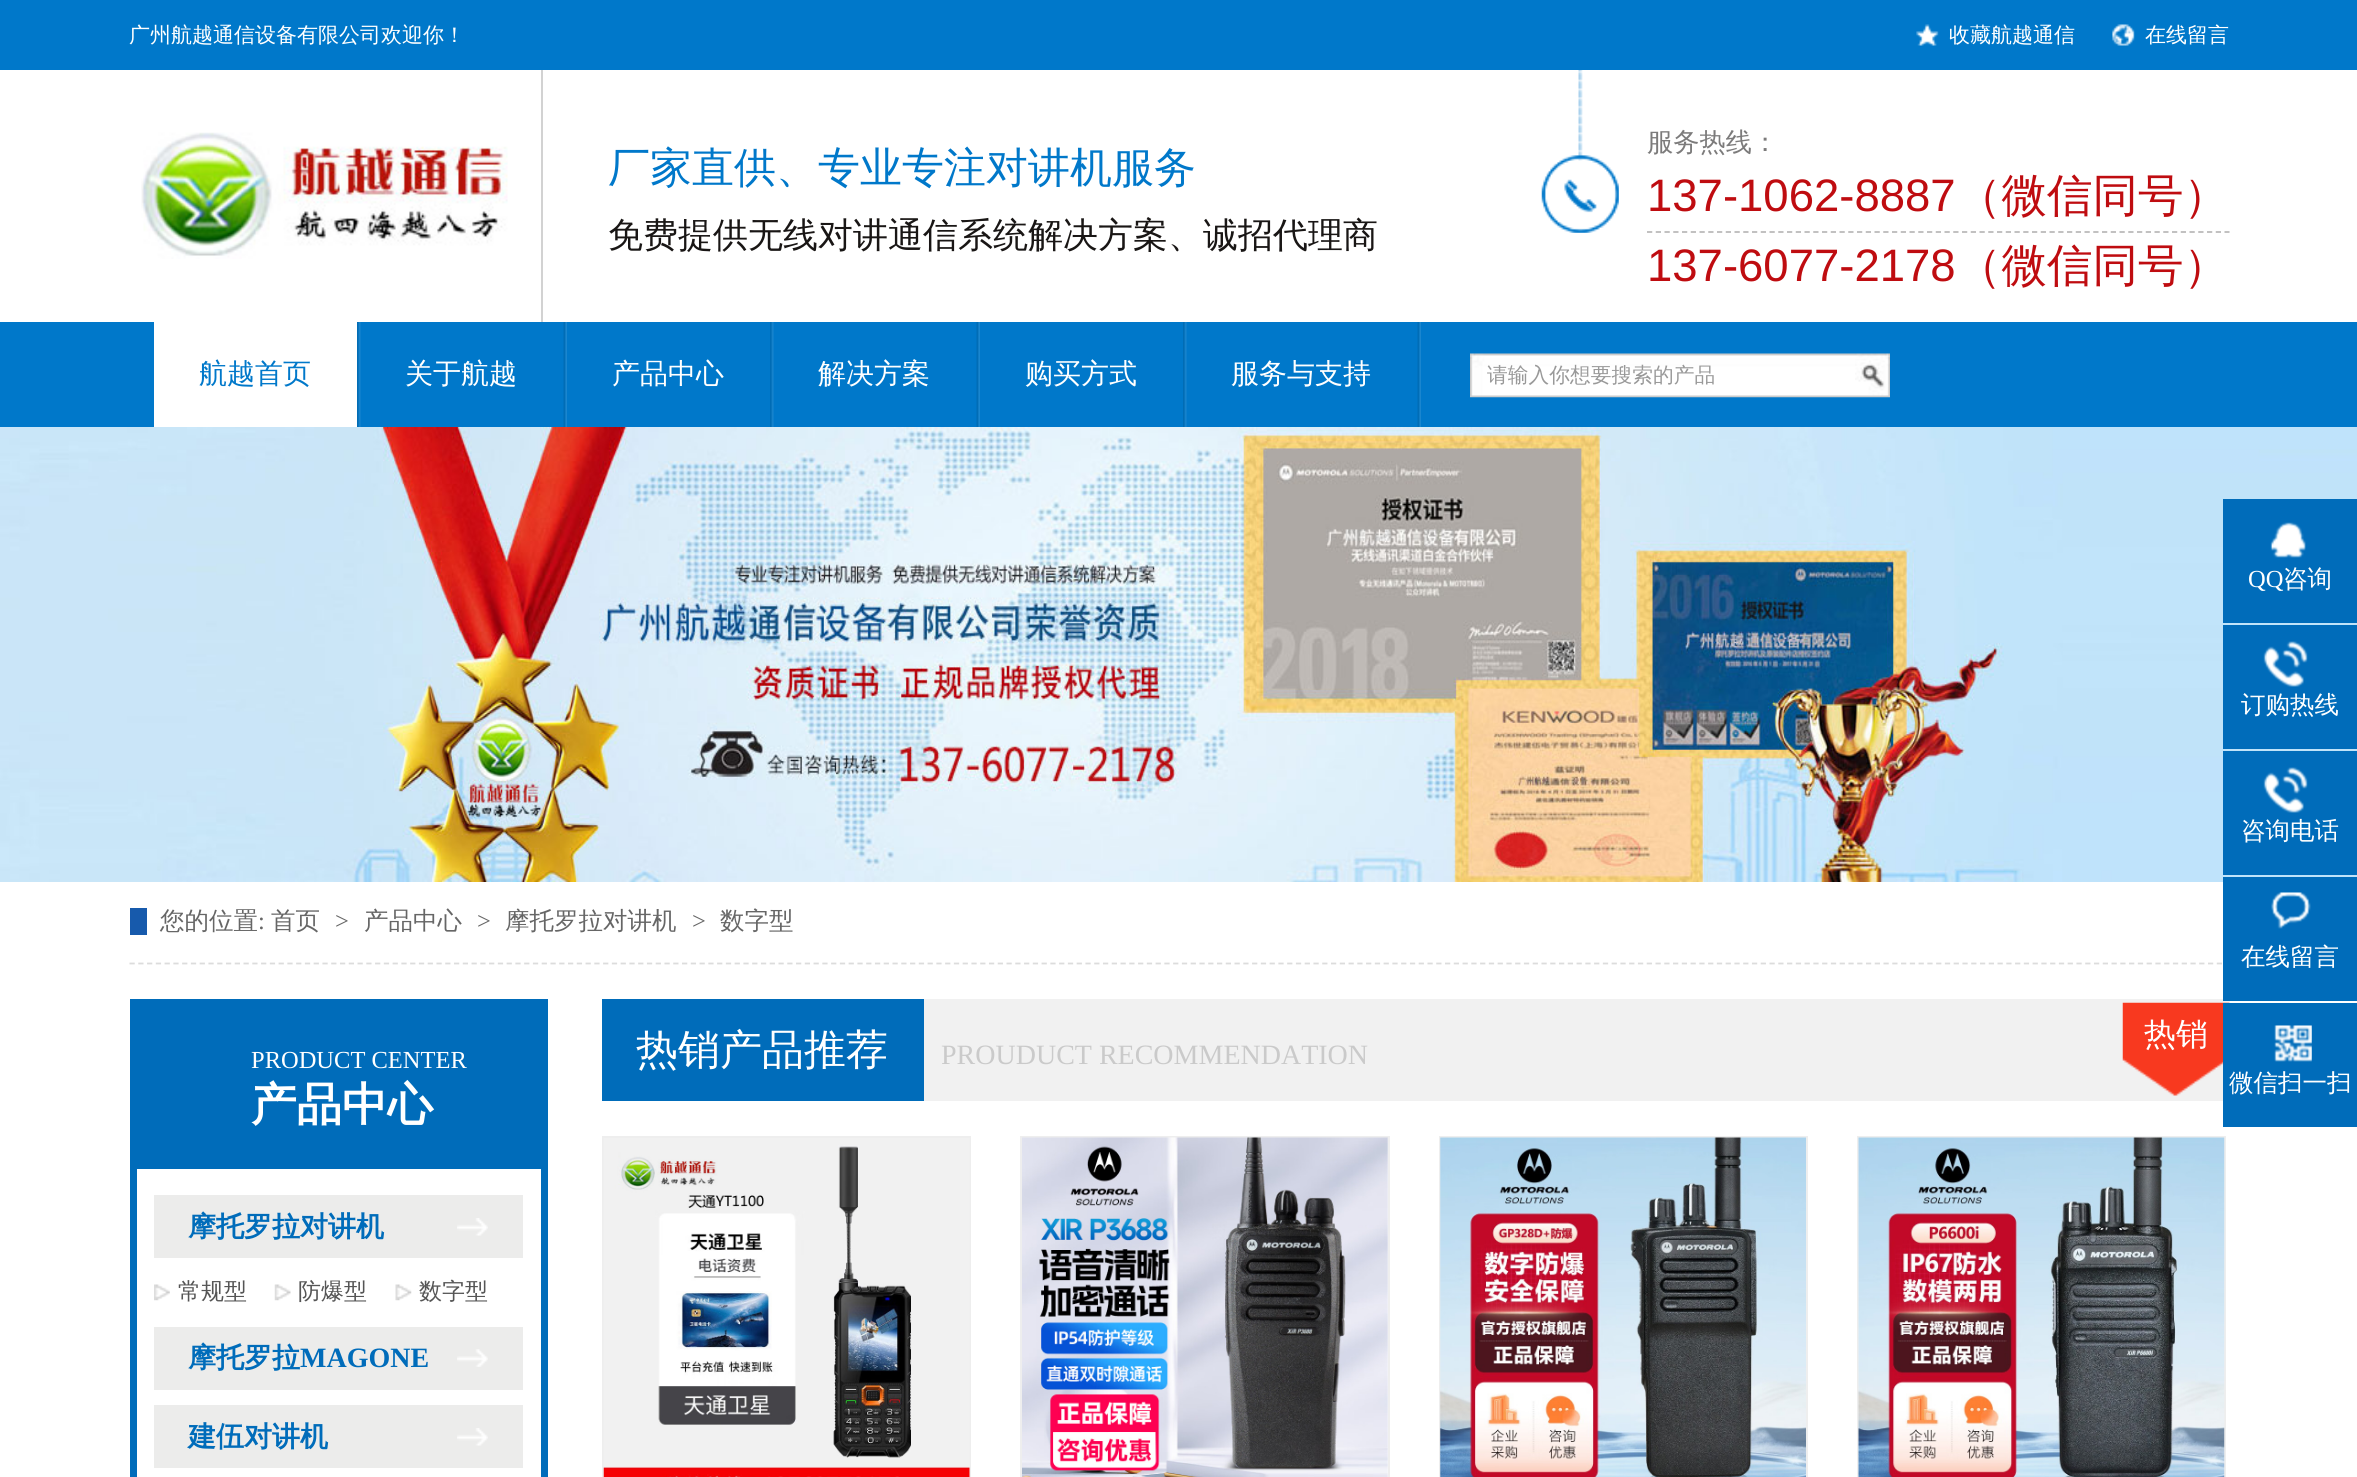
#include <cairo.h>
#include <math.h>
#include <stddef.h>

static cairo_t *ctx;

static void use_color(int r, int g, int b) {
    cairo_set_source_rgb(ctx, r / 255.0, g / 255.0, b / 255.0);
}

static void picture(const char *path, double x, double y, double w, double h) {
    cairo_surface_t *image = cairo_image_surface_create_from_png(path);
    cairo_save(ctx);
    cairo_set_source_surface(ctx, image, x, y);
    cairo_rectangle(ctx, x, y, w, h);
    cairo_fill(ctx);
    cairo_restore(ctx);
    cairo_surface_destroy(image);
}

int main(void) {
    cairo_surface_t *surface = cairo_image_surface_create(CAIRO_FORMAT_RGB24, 2357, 1477);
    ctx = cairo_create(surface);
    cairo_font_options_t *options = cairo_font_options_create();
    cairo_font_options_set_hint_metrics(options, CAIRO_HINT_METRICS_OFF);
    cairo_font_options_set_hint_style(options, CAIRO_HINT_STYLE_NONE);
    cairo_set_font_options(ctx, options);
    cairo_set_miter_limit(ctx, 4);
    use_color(255, 255, 255);
    cairo_paint(ctx);
    use_color(0, 120, 202);
    cairo_rectangle(ctx, 0, 0, 2357, 70);
    cairo_fill(ctx);
    cairo_select_font_face(ctx, "WenQuanYi Zen Hei Medium", CAIRO_FONT_SLANT_NORMAL, CAIRO_FONT_WEIGHT_NORMAL);
    cairo_set_font_size(ctx, 21);
    use_color(255, 255, 255);
    cairo_move_to(ctx, 129, 42);
    cairo_show_text(ctx, "广州航越通信设备有限公司欢迎你！");
    picture("img1.png", 1916, 24, 23, 22);
    cairo_move_to(ctx, 1949, 42);
    cairo_show_text(ctx, "收藏航越通信");
    picture("img2.png", 2112, 24, 23, 22);
    cairo_move_to(ctx, 2145, 42);
    cairo_show_text(ctx, "在线留言");
    picture("img3.png", 141, 132, 367, 127);
    use_color(210, 210, 210);
    cairo_rectangle(ctx, 541, 70, 2, 256);
    cairo_fill(ctx);
    cairo_set_font_size(ctx, 42);
    use_color(0, 120, 202);
    cairo_move_to(ctx, 608, 182);
    cairo_show_text(ctx, "厂家直供、专业专注对讲机服务");
    cairo_set_font_size(ctx, 35);
    use_color(25, 22, 21);
    cairo_move_to(ctx, 608, 247);
    cairo_show_text(ctx, "免费提供无线对讲通信系统解决方案、诚招代理商");
    picture("img4.png", 1541, 70, 78, 163);
    cairo_set_font_size(ctx, 26.25);
    use_color(124, 123, 123);
    cairo_move_to(ctx, 1647, 151);
    cairo_show_text(ctx, "服务热线：");
    cairo_new_path(ctx);
    cairo_move_to(ctx, 1647, 232);
    cairo_line_to(ctx, 2229.5, 232);
    use_color(187, 186, 186);
    cairo_set_line_width(ctx, 1.8);
    cairo_set_dash(ctx, (double[]){5.25, 3.5}, 2, 0);
    cairo_stroke(ctx);
    cairo_select_font_face(ctx, "Liberation Sans", CAIRO_FONT_SLANT_NORMAL, CAIRO_FONT_WEIGHT_NORMAL);
    cairo_set_font_size(ctx, 45.5);
    use_color(191, 12, 16);
    cairo_move_to(ctx, 1647, 211);
    cairo_show_text(ctx, "137-1062-8887");
    cairo_select_font_face(ctx, "WenQuanYi Zen Hei Medium", CAIRO_FONT_SLANT_NORMAL, CAIRO_FONT_WEIGHT_NORMAL);
    cairo_move_to(ctx, 1956, 211);
    cairo_show_text(ctx, "（微信同号）");
    cairo_select_font_face(ctx, "Liberation Sans", CAIRO_FONT_SLANT_NORMAL, CAIRO_FONT_WEIGHT_NORMAL);
    cairo_move_to(ctx, 1647, 281);
    cairo_show_text(ctx, "137-6077-2178");
    cairo_select_font_face(ctx, "WenQuanYi Zen Hei Medium", CAIRO_FONT_SLANT_NORMAL, CAIRO_FONT_WEIGHT_NORMAL);
    cairo_move_to(ctx, 1956, 281);
    cairo_show_text(ctx, "（微信同号）");
    use_color(0, 120, 202);
    cairo_rectangle(ctx, 0, 322, 2357, 105);
    cairo_fill(ctx);
    use_color(255, 255, 255);
    cairo_rectangle(ctx, 154, 322, 203, 105);
    cairo_fill(ctx);
    cairo_set_font_size(ctx, 28);
    use_color(0, 120, 202);
    cairo_move_to(ctx, 199, 383);
    cairo_show_text(ctx, "航越首页");
    picture("img5.png", 357, 322, 4, 105);
    use_color(255, 255, 255);
    cairo_move_to(ctx, 405, 383);
    cairo_show_text(ctx, "关于航越");
    picture("img6.png", 563, 322, 4, 105);
    cairo_move_to(ctx, 612, 383);
    cairo_show_text(ctx, "产品中心");
    picture("img5.png", 770, 322, 4, 105);
    cairo_move_to(ctx, 818, 383);
    cairo_show_text(ctx, "解决方案");
    picture("img6.png", 976, 322, 4, 105);
    cairo_move_to(ctx, 1025, 383);
    cairo_show_text(ctx, "购买方式");
    picture("img5.png", 1183, 322, 4, 105);
    cairo_move_to(ctx, 1231, 383);
    cairo_show_text(ctx, "服务与支持");
    picture("img6.png", 1417, 322, 4, 105);
    picture("img7.png", 1470, 353, 385, 45);
    cairo_set_font_size(ctx, 20.75);
    use_color(153, 153, 153);
    cairo_move_to(ctx, 1487, 382);
    cairo_show_text(ctx, "请输入你想要搜索的产品");
    picture("img8.png", 1855, 353, 35, 45);
    picture("img9.png", 0, 427, 2357, 455);
    use_color(0, 108, 186);
    cairo_rectangle(ctx, 2223, 499, 134, 124);
    cairo_fill(ctx);
    picture("img10.png", 2270, 522, 36, 36);
    cairo_select_font_face(ctx, "Liberation Serif", CAIRO_FONT_SLANT_NORMAL, CAIRO_FONT_WEIGHT_NORMAL);
    cairo_set_font_size(ctx, 24.5);
    use_color(255, 255, 255);
    cairo_move_to(ctx, 2248, 587);
    cairo_show_text(ctx, "QQ");
    cairo_select_font_face(ctx, "WenQuanYi Zen Hei Medium", CAIRO_FONT_SLANT_NORMAL, CAIRO_FONT_WEIGHT_NORMAL);
    cairo_move_to(ctx, 2283, 587);
    cairo_show_text(ctx, "咨询");
    use_color(0, 108, 186);
    cairo_rectangle(ctx, 2223, 625, 134, 124);
    cairo_fill(ctx);
    picture("img11.png", 2263, 641, 45, 46);
    use_color(255, 255, 255);
    cairo_move_to(ctx, 2241, 713);
    cairo_show_text(ctx, "订购热线");
    use_color(0, 108, 186);
    cairo_rectangle(ctx, 2223, 751, 134, 124);
    cairo_fill(ctx);
    picture("img11.png", 2263, 767, 45, 46);
    use_color(255, 255, 255);
    cairo_move_to(ctx, 2241, 839);
    cairo_show_text(ctx, "咨询电话");
    cairo_new_path(ctx);
    cairo_move_to(ctx, 129.5, 963.5);
    cairo_line_to(ctx, 2229.5, 963.5);
    use_color(220, 220, 220);
    cairo_set_dash(ctx, (double[]){5.25, 3.52}, 2, 0);
    cairo_stroke(ctx);
    use_color(241, 241, 241);
    cairo_rectangle(ctx, 924, 999, 1306, 102);
    cairo_fill(ctx);
    use_color(0, 108, 186);
    cairo_rectangle(ctx, 2223, 877, 134, 124);
    cairo_fill(ctx);
    picture("img12.png", 2271, 892, 40, 37);
    use_color(255, 255, 255);
    cairo_move_to(ctx, 2241, 965);
    cairo_show_text(ctx, "在线留言");
    picture("img14.png", 2122, 1002, 108, 94);
    use_color(0, 108, 186);
    cairo_rectangle(ctx, 2223, 1003, 134, 124);
    cairo_fill(ctx);
    picture("img13.png", 2274, 1025, 38, 37);
    use_color(255, 255, 255);
    cairo_move_to(ctx, 2229, 1091);
    cairo_show_text(ctx, "微信扫一扫");
    use_color(102, 102, 102);
    cairo_move_to(ctx, 160, 929);
    cairo_show_text(ctx, "您的位置");
    use_color(23, 90, 172);
    cairo_rectangle(ctx, 130, 908, 17, 27);
    cairo_fill(ctx);
    cairo_select_font_face(ctx, "Liberation Serif", CAIRO_FONT_SLANT_NORMAL, CAIRO_FONT_WEIGHT_NORMAL);
    use_color(102, 102, 102);
    cairo_move_to(ctx, 258, 929);
    cairo_show_text(ctx, ":");
    cairo_select_font_face(ctx, "WenQuanYi Zen Hei Medium", CAIRO_FONT_SLANT_NORMAL, CAIRO_FONT_WEIGHT_NORMAL);
    cairo_move_to(ctx, 271, 929);
    cairo_show_text(ctx, "首页");
    cairo_select_font_face(ctx, "Liberation Serif", CAIRO_FONT_SLANT_NORMAL, CAIRO_FONT_WEIGHT_NORMAL);
    cairo_move_to(ctx, 335, 929);
    cairo_show_text(ctx, ">");
    cairo_select_font_face(ctx, "WenQuanYi Zen Hei Medium", CAIRO_FONT_SLANT_NORMAL, CAIRO_FONT_WEIGHT_NORMAL);
    cairo_move_to(ctx, 364, 929);
    cairo_show_text(ctx, "产品中心");
    cairo_select_font_face(ctx, "Liberation Serif", CAIRO_FONT_SLANT_NORMAL, CAIRO_FONT_WEIGHT_NORMAL);
    cairo_move_to(ctx, 477, 929);
    cairo_show_text(ctx, ">");
    cairo_select_font_face(ctx, "WenQuanYi Zen Hei Medium", CAIRO_FONT_SLANT_NORMAL, CAIRO_FONT_WEIGHT_NORMAL);
    cairo_move_to(ctx, 505, 929);
    cairo_show_text(ctx, "摩托罗拉对讲机");
    cairo_select_font_face(ctx, "Liberation Serif", CAIRO_FONT_SLANT_NORMAL, CAIRO_FONT_WEIGHT_NORMAL);
    cairo_move_to(ctx, 692, 929);
    cairo_show_text(ctx, ">");
    cairo_select_font_face(ctx, "WenQuanYi Zen Hei Medium", CAIRO_FONT_SLANT_NORMAL, CAIRO_FONT_WEIGHT_NORMAL);
    cairo_move_to(ctx, 720, 929);
    cairo_show_text(ctx, "数字型");
    use_color(0, 108, 186);
    cairo_rectangle(ctx, 602, 999, 322, 102);
    cairo_fill(ctx);
    cairo_set_font_size(ctx, 42);
    use_color(255, 255, 255);
    cairo_move_to(ctx, 636, 1064);
    cairo_show_text(ctx, "热销产品推荐");
    cairo_select_font_face(ctx, "Liberation Serif", CAIRO_FONT_SLANT_NORMAL, CAIRO_FONT_WEIGHT_NORMAL);
    cairo_set_font_size(ctx, 28);
    use_color(202, 202, 202);
    cairo_move_to(ctx, 941, 1064);
    cairo_show_text(ctx, "PROUDUCT RECOMMENDATION");
    cairo_select_font_face(ctx, "WenQuanYi Zen Hei Medium", CAIRO_FONT_SLANT_NORMAL, CAIRO_FONT_WEIGHT_NORMAL);
    cairo_set_font_size(ctx, 32);
    use_color(255, 255, 255);
    cairo_move_to(ctx, 2144, 1045);
    cairo_show_text(ctx, "热销");
    cairo_rectangle(ctx, 603, 1137, 367, 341);
    use_color(238, 238, 238);
    cairo_set_line_width(ctx, 2);
    cairo_set_dash(ctx, NULL, 0, 0);
    cairo_stroke(ctx);
    picture("img15.png", 603, 1138, 367, 339);
    cairo_rectangle(ctx, 1021, 1137, 368, 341);
    cairo_stroke(ctx);
    picture("img16.png", 1022, 1137, 366, 340);
    cairo_rectangle(ctx, 1440, 1137, 367, 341);
    cairo_stroke(ctx);
    picture("img17.png", 1440, 1137, 366, 340);
    cairo_rectangle(ctx, 1858, 1137, 367, 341);
    cairo_stroke(ctx);
    picture("img18.png", 1858, 1137, 367, 340);
    use_color(0, 108, 186);
    cairo_rectangle(ctx, 130, 999, 418, 478);
    cairo_fill(ctx);
    cairo_select_font_face(ctx, "Liberation Serif", CAIRO_FONT_SLANT_NORMAL, CAIRO_FONT_WEIGHT_NORMAL);
    cairo_set_font_size(ctx, 24.5);
    use_color(255, 255, 255);
    cairo_move_to(ctx, 251, 1068);
    cairo_show_text(ctx, "PRODUCT CENTER");
    cairo_select_font_face(ctx, "WenQuanYi Zen Hei", CAIRO_FONT_SLANT_NORMAL, CAIRO_FONT_WEIGHT_BOLD);
    cairo_set_font_size(ctx, 45.5);
    cairo_move_to(ctx, 251, 1120);
    cairo_show_text(ctx, "产品中心");
    cairo_rectangle(ctx, 137, 1169, 404, 308);
    cairo_fill(ctx);
    use_color(236, 236, 235);
    cairo_rectangle(ctx, 154, 1195, 369, 63);
    cairo_fill(ctx);
    picture("img19.png", 457, 1218, 31, 18);
    cairo_set_font_size(ctx, 28);
    use_color(0, 108, 186);
    cairo_move_to(ctx, 188, 1236);
    cairo_show_text(ctx, "摩托罗拉对讲机");
    picture("img20.png", 154, 1284, 16, 17);
    cairo_select_font_face(ctx, "WenQuanYi Zen Hei Medium", CAIRO_FONT_SLANT_NORMAL, CAIRO_FONT_WEIGHT_NORMAL);
    cairo_set_font_size(ctx, 23);
    use_color(85, 85, 85);
    cairo_move_to(ctx, 178, 1299);
    cairo_show_text(ctx, "常规型");
    picture("img21.png", 274, 1284, 17, 17);
    cairo_move_to(ctx, 298, 1299);
    cairo_show_text(ctx, "防爆型");
    picture("img22.png", 395, 1284, 17, 17);
    cairo_move_to(ctx, 419, 1299);
    cairo_show_text(ctx, "数字型");
    use_color(236, 236, 235);
    cairo_rectangle(ctx, 154, 1327, 369, 63);
    cairo_fill(ctx);
    picture("img23.png", 457, 1349, 31, 18);
    cairo_select_font_face(ctx, "WenQuanYi Zen Hei", CAIRO_FONT_SLANT_NORMAL, CAIRO_FONT_WEIGHT_BOLD);
    cairo_set_font_size(ctx, 28);
    use_color(0, 108, 186);
    cairo_move_to(ctx, 188, 1367);
    cairo_show_text(ctx, "摩托罗拉");
    cairo_select_font_face(ctx, "Liberation Serif", CAIRO_FONT_SLANT_NORMAL, CAIRO_FONT_WEIGHT_BOLD);
    cairo_move_to(ctx, 300, 1367);
    cairo_show_text(ctx, "MAGONE");
    use_color(236, 236, 235);
    cairo_rectangle(ctx, 154, 1405, 369, 63);
    cairo_fill(ctx);
    picture("img19.png", 457, 1428, 31, 18);
    cairo_select_font_face(ctx, "WenQuanYi Zen Hei", CAIRO_FONT_SLANT_NORMAL, CAIRO_FONT_WEIGHT_BOLD);
    use_color(0, 108, 186);
    cairo_move_to(ctx, 188, 1446);
    cairo_show_text(ctx, "建伍对讲机");
    cairo_surface_write_to_png(surface, "result.png");
    cairo_font_options_destroy(options);
    cairo_destroy(ctx);
    cairo_surface_destroy(surface);
    return 0;
}
